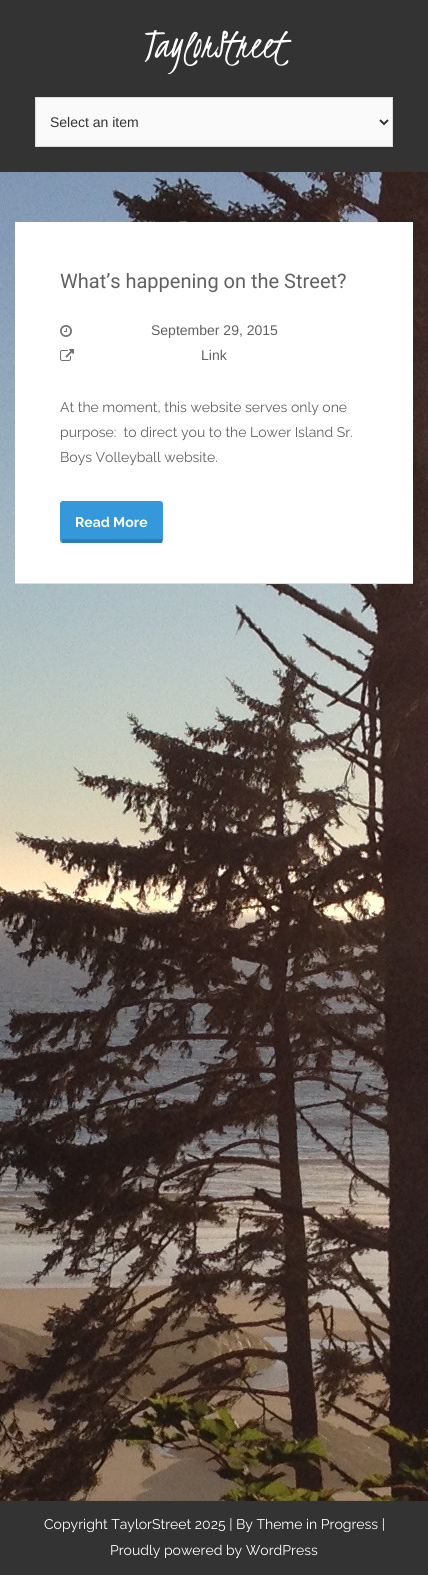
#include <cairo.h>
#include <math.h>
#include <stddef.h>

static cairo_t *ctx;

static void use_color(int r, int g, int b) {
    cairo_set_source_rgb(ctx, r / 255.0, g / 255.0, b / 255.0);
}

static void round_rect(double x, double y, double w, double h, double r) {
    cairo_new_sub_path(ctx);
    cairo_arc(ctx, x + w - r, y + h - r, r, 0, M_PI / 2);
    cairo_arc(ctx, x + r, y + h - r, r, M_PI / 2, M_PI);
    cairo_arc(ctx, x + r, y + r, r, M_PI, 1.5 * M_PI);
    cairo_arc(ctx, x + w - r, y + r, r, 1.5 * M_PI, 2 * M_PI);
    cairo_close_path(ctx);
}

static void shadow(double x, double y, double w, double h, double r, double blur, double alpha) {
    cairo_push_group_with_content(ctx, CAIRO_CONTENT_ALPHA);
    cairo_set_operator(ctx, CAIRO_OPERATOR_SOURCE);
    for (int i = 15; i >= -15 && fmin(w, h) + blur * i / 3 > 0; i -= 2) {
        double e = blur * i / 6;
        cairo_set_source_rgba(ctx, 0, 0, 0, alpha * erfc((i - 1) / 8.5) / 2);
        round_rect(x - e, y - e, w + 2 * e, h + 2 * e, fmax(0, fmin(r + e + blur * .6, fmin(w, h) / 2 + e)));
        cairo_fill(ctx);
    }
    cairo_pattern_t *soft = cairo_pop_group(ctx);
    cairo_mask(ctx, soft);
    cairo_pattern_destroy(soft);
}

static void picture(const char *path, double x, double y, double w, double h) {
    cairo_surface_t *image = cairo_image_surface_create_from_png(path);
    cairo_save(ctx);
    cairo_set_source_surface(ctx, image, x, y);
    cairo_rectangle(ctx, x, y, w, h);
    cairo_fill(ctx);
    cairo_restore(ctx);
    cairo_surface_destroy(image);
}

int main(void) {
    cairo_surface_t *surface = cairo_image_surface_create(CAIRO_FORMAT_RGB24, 428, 1575);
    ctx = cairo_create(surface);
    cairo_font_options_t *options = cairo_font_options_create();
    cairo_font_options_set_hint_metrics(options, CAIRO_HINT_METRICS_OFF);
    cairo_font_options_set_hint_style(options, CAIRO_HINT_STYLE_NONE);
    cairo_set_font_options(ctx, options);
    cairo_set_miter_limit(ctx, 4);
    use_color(255, 255, 255);
    cairo_paint(ctx);
    picture("img1.png", 0, 172, 428, 1329);
    use_color(51, 51, 51);
    cairo_rectangle(ctx, 0, 0, 428, 172);
    cairo_fill(ctx);
    cairo_select_font_face(ctx, "Kristi", CAIRO_FONT_SLANT_NORMAL, CAIRO_FONT_WEIGHT_NORMAL);
    cairo_set_font_size(ctx, 45);
    use_color(255, 255, 255);
    cairo_move_to(ctx, 142, 57);
    cairo_show_text(ctx, "TaylorStreet");
    use_color(250, 250, 250);
    cairo_rectangle(ctx, 35.5, 97.5, 357, 49);
    cairo_fill_preserve(ctx);
    use_color(221, 221, 221);
    cairo_set_line_width(ctx, 1);
    cairo_stroke(ctx);
    cairo_new_path(ctx);
    cairo_move_to(ctx, 380, 120);
    cairo_line_to(ctx, 384, 124);
    cairo_line_to(ctx, 388, 120);
    use_color(51, 51, 51);
    cairo_set_line_width(ctx, 2);
    cairo_stroke(ctx);
    cairo_select_font_face(ctx, "Liberation Sans", CAIRO_FONT_SLANT_NORMAL, CAIRO_FONT_WEIGHT_NORMAL);
    cairo_set_font_size(ctx, 14);
    cairo_move_to(ctx, 50, 127);
    cairo_show_text(ctx, "Select an item");
    use_color(255, 255, 255);
    cairo_rectangle(ctx, 15, 222, 398, 361);
    cairo_fill(ctx);
    use_color(221, 221, 221);
    cairo_rectangle(ctx, 15, 583, 398, 1);
    cairo_fill(ctx);
    cairo_select_font_face(ctx, "Roboto", CAIRO_FONT_SLANT_NORMAL, CAIRO_FONT_WEIGHT_NORMAL);
    cairo_set_font_size(ctx, 20);
    use_color(97, 97, 97);
    cairo_move_to(ctx, 60, 288);
    cairo_show_text(ctx, "What’s happening on the Street?");
    picture("img2.png", 60, 325, 12, 12);
    cairo_select_font_face(ctx, "Liberation Sans", CAIRO_FONT_SLANT_NORMAL, CAIRO_FONT_WEIGHT_NORMAL);
    cairo_set_font_size(ctx, 14);
    cairo_move_to(ctx, 151, 335);
    cairo_show_text(ctx, "September 29, 2015");
    picture("img3.png", 60, 349, 14, 12);
    cairo_move_to(ctx, 201, 360);
    cairo_show_text(ctx, "Link");
    cairo_select_font_face(ctx, "Raleway", CAIRO_FONT_SLANT_NORMAL, CAIRO_FONT_WEIGHT_NORMAL);
    cairo_move_to(ctx, 60, 412);
    cairo_show_text(ctx, "At the moment, this website serves only one");
    cairo_move_to(ctx, 60, 437);
    cairo_show_text(ctx, "purpose:  to direct you to the Lower Island Sr.");
    cairo_move_to(ctx, 60, 462);
    cairo_show_text(ctx, "Boys Volleyball website.");
    use_color(52, 152, 219);
    round_rect(60, 501, 103, 42, 3);
    cairo_fill(ctx);
    use_color(41, 128, 185);
    cairo_rectangle(ctx, 62, 539, 100, 4);
    cairo_fill(ctx);
    cairo_select_font_face(ctx, "Raleway", CAIRO_FONT_SLANT_NORMAL, CAIRO_FONT_WEIGHT_BOLD);
    use_color(255, 255, 255);
    cairo_move_to(ctx, 75, 527);
    cairo_show_text(ctx, "Read More");
    use_color(34, 25, 25);
    shadow(0, 1502, 428, 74, 0, 1.5, 0.4);
    use_color(51, 51, 51);
    cairo_rectangle(ctx, 0, 1501, 428, 74);
    cairo_fill(ctx);
    cairo_select_font_face(ctx, "Raleway", CAIRO_FONT_SLANT_NORMAL, CAIRO_FONT_WEIGHT_NORMAL);
    use_color(255, 255, 255);
    cairo_move_to(ctx, 44, 1529);
    cairo_show_text(ctx, "Copyright TaylorStreet 2025 | By Theme in Progress |");
    cairo_move_to(ctx, 110, 1555);
    cairo_show_text(ctx, "Proudly powered by WordPress");
    cairo_surface_write_to_png(surface, "result.png");
    cairo_font_options_destroy(options);
    cairo_destroy(ctx);
    cairo_surface_destroy(surface);
    return 0;
}
